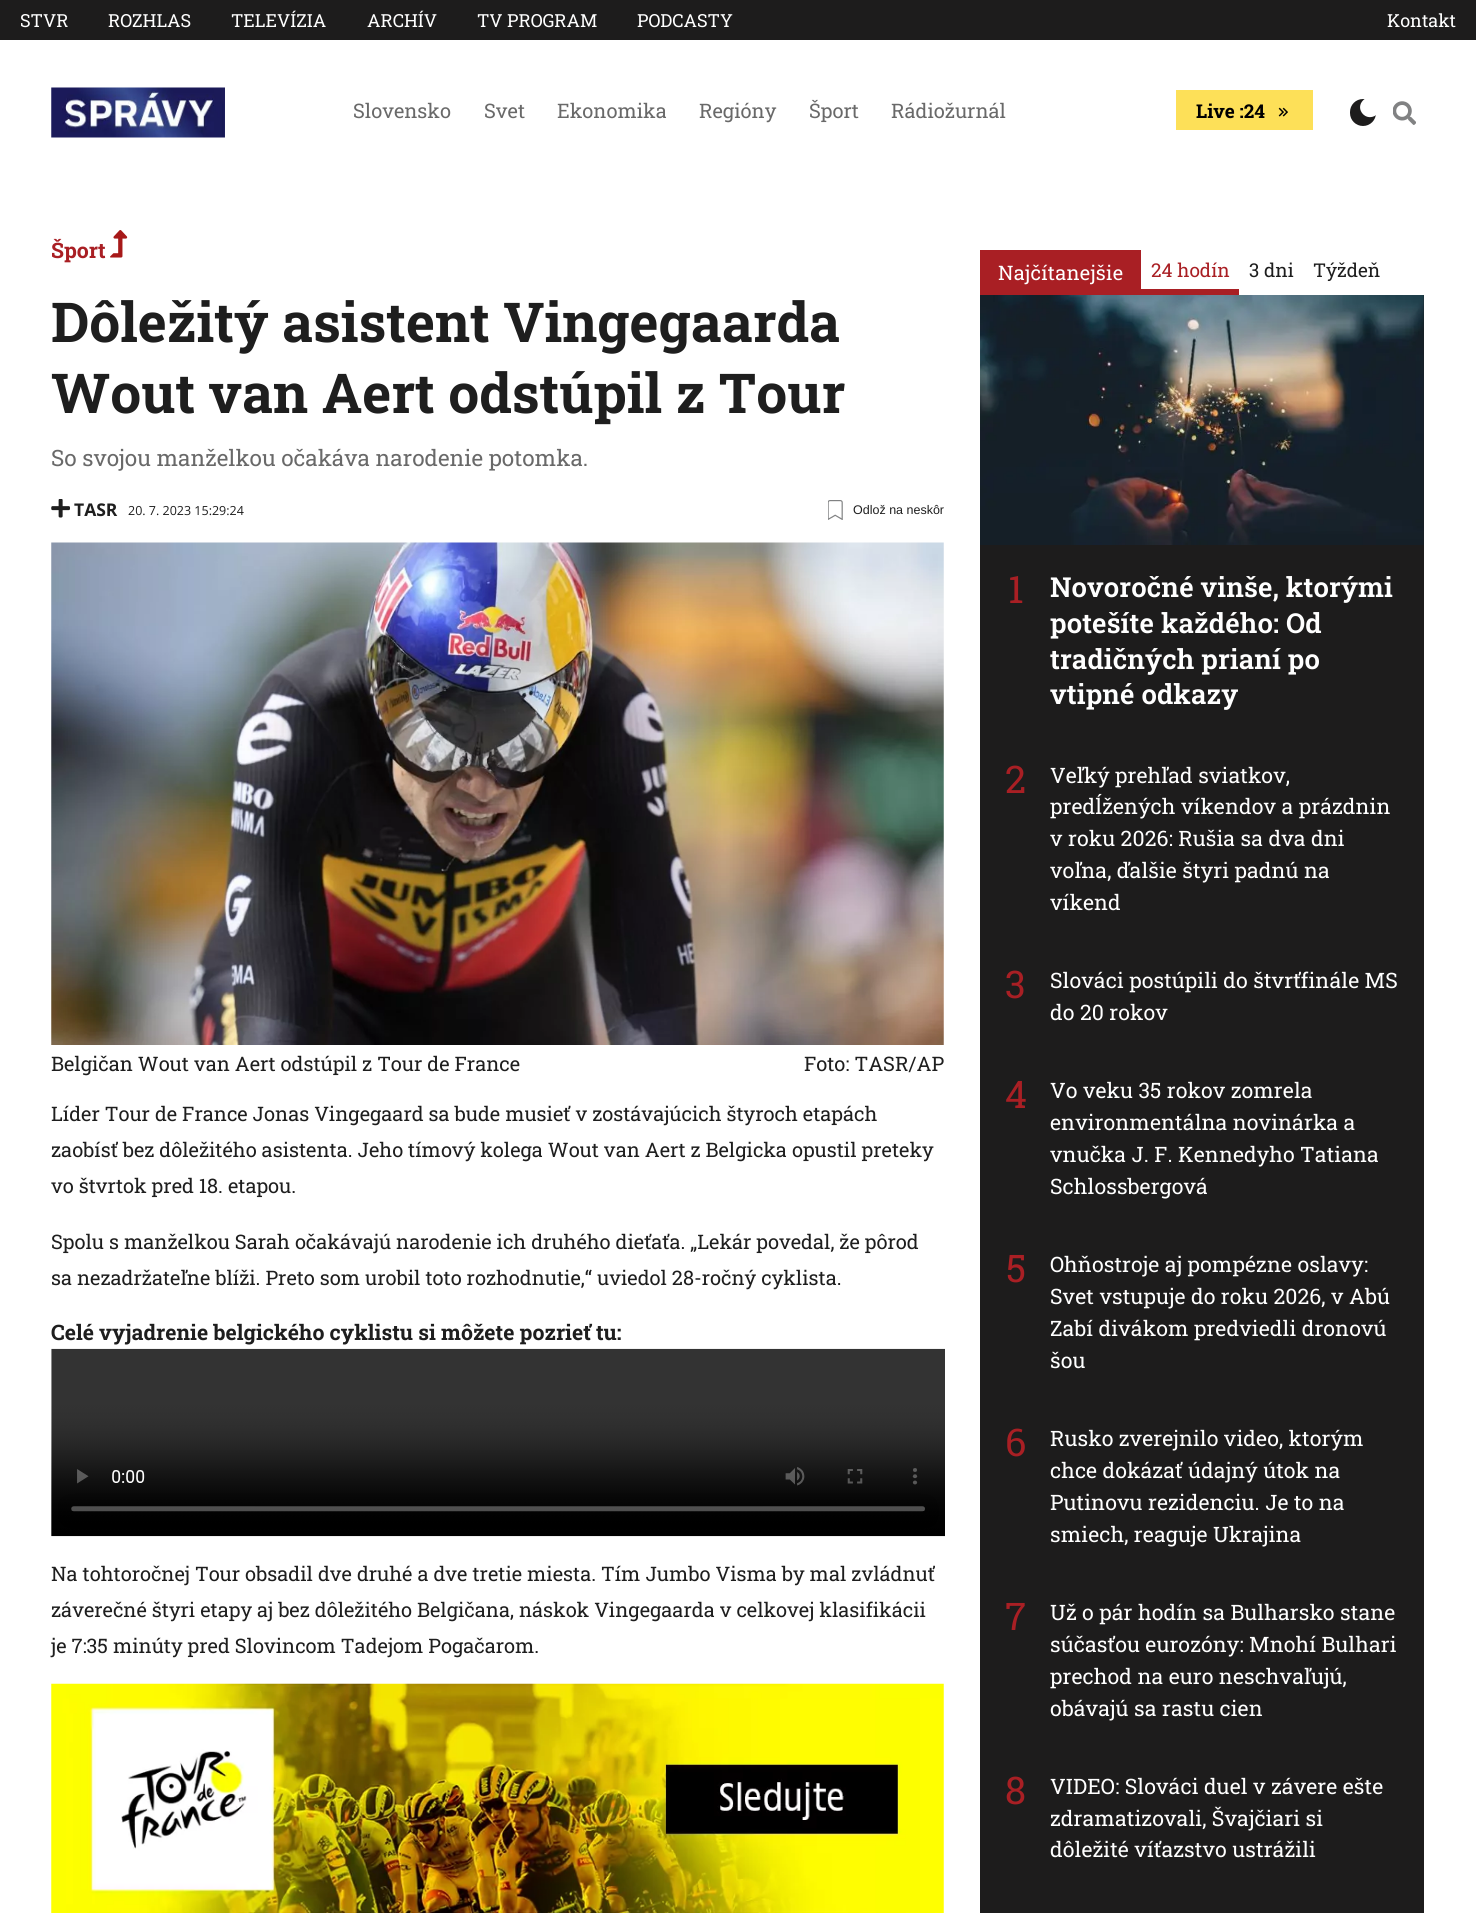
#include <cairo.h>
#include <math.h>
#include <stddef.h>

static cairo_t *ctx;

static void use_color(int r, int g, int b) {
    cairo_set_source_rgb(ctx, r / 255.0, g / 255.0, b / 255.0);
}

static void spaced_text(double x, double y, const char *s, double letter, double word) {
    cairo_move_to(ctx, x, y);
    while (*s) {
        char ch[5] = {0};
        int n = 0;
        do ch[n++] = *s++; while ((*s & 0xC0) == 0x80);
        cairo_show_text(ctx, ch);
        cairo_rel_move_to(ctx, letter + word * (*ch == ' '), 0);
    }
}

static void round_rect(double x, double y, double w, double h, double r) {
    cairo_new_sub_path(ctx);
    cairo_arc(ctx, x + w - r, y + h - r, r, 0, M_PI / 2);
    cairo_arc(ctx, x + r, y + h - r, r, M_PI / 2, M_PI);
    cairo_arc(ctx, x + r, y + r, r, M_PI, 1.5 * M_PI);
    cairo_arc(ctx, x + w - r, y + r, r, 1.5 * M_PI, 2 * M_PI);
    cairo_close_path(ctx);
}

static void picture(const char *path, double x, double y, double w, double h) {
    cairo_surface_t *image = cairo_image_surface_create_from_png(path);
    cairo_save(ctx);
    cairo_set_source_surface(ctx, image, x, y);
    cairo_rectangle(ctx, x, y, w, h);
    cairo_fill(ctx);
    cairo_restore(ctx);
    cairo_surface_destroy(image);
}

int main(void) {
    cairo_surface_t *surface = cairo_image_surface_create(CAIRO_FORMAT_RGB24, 1476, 1913);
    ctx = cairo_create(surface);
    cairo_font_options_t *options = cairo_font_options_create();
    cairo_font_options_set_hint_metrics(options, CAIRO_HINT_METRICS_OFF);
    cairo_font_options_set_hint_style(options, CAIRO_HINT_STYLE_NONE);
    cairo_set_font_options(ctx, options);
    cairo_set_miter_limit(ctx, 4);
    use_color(255, 255, 255);
    cairo_paint(ctx);
    use_color(29, 28, 28);
    cairo_rectangle(ctx, 0, 0, 1476, 40);
    cairo_fill(ctx);
    cairo_select_font_face(ctx, "Roboto Slab", CAIRO_FONT_SLANT_NORMAL, CAIRO_FONT_WEIGHT_NORMAL);
    cairo_set_font_size(ctx, 18);
    use_color(255, 255, 255);
    cairo_move_to(ctx, 20, 27);
    cairo_show_text(ctx, "STVR");
    cairo_move_to(ctx, 108, 27);
    cairo_show_text(ctx, "ROZHLAS");
    cairo_move_to(ctx, 231, 27);
    cairo_show_text(ctx, "TELEVÍZIA");
    cairo_move_to(ctx, 367, 27);
    cairo_show_text(ctx, "ARCHÍV");
    cairo_move_to(ctx, 477, 27);
    cairo_show_text(ctx, "TV PROGRAM");
    cairo_move_to(ctx, 637, 27);
    cairo_show_text(ctx, "PODCASTY");
    cairo_move_to(ctx, 1387, 27);
    cairo_show_text(ctx, "Kontakt");
    picture("img1.png", 51, 87, 174, 51);
    cairo_set_font_size(ctx, 20);
    use_color(105, 105, 105);
    cairo_move_to(ctx, 353, 118);
    cairo_show_text(ctx, "Slovensko");
    cairo_move_to(ctx, 484, 118);
    cairo_show_text(ctx, "Svet");
    cairo_move_to(ctx, 557, 118);
    cairo_show_text(ctx, "Ekonomika");
    cairo_move_to(ctx, 699, 118);
    cairo_show_text(ctx, "Regióny");
    cairo_move_to(ctx, 809, 118);
    cairo_show_text(ctx, "Šport");
    cairo_move_to(ctx, 891, 118);
    cairo_show_text(ctx, "Rádiožurnál");
    use_color(253, 224, 88);
    cairo_rectangle(ctx, 1176, 90, 137, 40);
    cairo_fill(ctx);
    cairo_select_font_face(ctx, "Roboto Slab", CAIRO_FONT_SLANT_NORMAL, CAIRO_FONT_WEIGHT_BOLD);
    cairo_set_font_size(ctx, 19);
    use_color(0, 0, 0);
    cairo_move_to(ctx, 1196, 118);
    cairo_show_text(ctx, "Live :24");
    picture("img2.png", 1278, 107, 10, 10);
    use_color(29, 28, 28);
    round_rect(1350, 99, 26, 27, 13);
    cairo_fill(ctx);
    use_color(255, 255, 255);
    cairo_new_path(ctx);
    cairo_move_to(ctx, 1378.5, 101.5);
    cairo_curve_to(ctx, 1386, 112, 1370, 123.5, 1362, 113);
    cairo_curve_to(ctx, 1354.5, 102.5, 1370.5, 90.5, 1378.5, 101.5);
    cairo_close_path(ctx);
    cairo_fill(ctx);
    picture("img3.png", 1393, 101, 23, 24);
    cairo_set_font_size(ctx, 21.25);
    use_color(169, 31, 36);
    cairo_move_to(ctx, 51, 258);
    cairo_show_text(ctx, "Šport");
    picture("img4.png", 110, 230, 18, 28);
    cairo_set_font_size(ctx, 55);
    use_color(30, 30, 30);
    cairo_move_to(ctx, 51, 342);
    cairo_show_text(ctx, "Dôležitý asistent Vingegaarda");
    cairo_move_to(ctx, 51, 413);
    cairo_show_text(ctx, "Wout van Aert odstúpil z Tour");
    cairo_select_font_face(ctx, "Roboto Slab", CAIRO_FONT_SLANT_NORMAL, CAIRO_FONT_WEIGHT_NORMAL);
    cairo_set_font_size(ctx, 22.5);
    use_color(105, 105, 105);
    cairo_move_to(ctx, 51, 466);
    cairo_show_text(ctx, "So svojou manželkou očakáva narodenie potomka.");
    picture("img5.png", 51, 499, 19, 19);
    cairo_select_font_face(ctx, "Open Sans", CAIRO_FONT_SLANT_NORMAL, CAIRO_FONT_WEIGHT_BOLD);
    cairo_set_font_size(ctx, 17.5);
    use_color(30, 30, 30);
    cairo_move_to(ctx, 74, 516);
    cairo_show_text(ctx, "TASR");
    cairo_select_font_face(ctx, "Open Sans", CAIRO_FONT_SLANT_NORMAL, CAIRO_FONT_WEIGHT_NORMAL);
    cairo_set_font_size(ctx, 12.5);
    cairo_move_to(ctx, 128, 515);
    cairo_show_text(ctx, "20. 7. 2023 15:29:24");
    picture("img6.png", 828, 500, 15, 20);
    cairo_select_font_face(ctx, "Liberation Sans", CAIRO_FONT_SLANT_NORMAL, CAIRO_FONT_WEIGHT_NORMAL);
    cairo_move_to(ctx, 853, 514);
    cairo_show_text(ctx, "Odlož na neskôr");
    picture("img7.png", 51, 542, 893, 503);
    cairo_select_font_face(ctx, "Roboto Slab", CAIRO_FONT_SLANT_NORMAL, CAIRO_FONT_WEIGHT_NORMAL);
    cairo_set_font_size(ctx, 20);
    cairo_move_to(ctx, 51, 1071);
    cairo_show_text(ctx, "Belgičan Wout van Aert odstúpil z Tour de France");
    cairo_move_to(ctx, 804, 1071);
    cairo_show_text(ctx, "Foto: TASR/AP");
    cairo_move_to(ctx, 51, 1121);
    cairo_show_text(ctx, "Líder Tour de France Jonas Vingegaard sa bude musieť v zostávajúcich štyroch etapách");
    cairo_move_to(ctx, 51, 1157);
    cairo_show_text(ctx, "zaobísť bez dôležitého asistenta. Jeho tímový kolega Wout van Aert z Belgicka opustil preteky");
    cairo_move_to(ctx, 51, 1193);
    cairo_show_text(ctx, "vo štvrtok pred 18. etapou.");
    cairo_move_to(ctx, 51, 1249);
    cairo_show_text(ctx, "Spolu s manželkou Sarah očakávajú narodenie ich druhého dieťaťa. „Lekár povedal, že pôrod");
    cairo_move_to(ctx, 51, 1285);
    cairo_show_text(ctx, "sa nezadržateľne blíži. Preto som urobil toto rozhodnutie,“ uviedol 28-ročný cyklista.");
    cairo_select_font_face(ctx, "Roboto Slab", CAIRO_FONT_SLANT_NORMAL, CAIRO_FONT_WEIGHT_BOLD);
    cairo_set_font_size(ctx, 21.25);
    cairo_move_to(ctx, 51, 1340);
    cairo_show_text(ctx, "Celé vyjadrenie belgického cyklistu si môžete pozrieť tu:");
    picture("img8.png", 51, 1348, 894, 189);
    cairo_select_font_face(ctx, "Roboto Slab", CAIRO_FONT_SLANT_NORMAL, CAIRO_FONT_WEIGHT_NORMAL);
    cairo_set_font_size(ctx, 20);
    cairo_move_to(ctx, 51, 1581);
    cairo_show_text(ctx, "Na tohtoročnej Tour obsadil dve druhé a dve tretie miesta. Tím Jumbo Visma by mal zvládnuť");
    cairo_move_to(ctx, 51, 1617);
    cairo_show_text(ctx, "záverečné štyri etapy aj bez dôležitého Belgičana, náskok Vingegaarda v celkovej klasifikácii");
    cairo_move_to(ctx, 51, 1653);
    cairo_show_text(ctx, "je 7:35 minúty pred Slovincom Tadejom Pogačarom.");
    picture("img9.png", 51, 1683, 893, 230);
    use_color(169, 31, 36);
    cairo_rectangle(ctx, 980, 250, 161, 45);
    cairo_fill(ctx);
    use_color(255, 255, 255);
    spaced_text(998, 280, "Najčítanejšie", 0.25, 0);
    use_color(169, 31, 36);
    cairo_rectangle(ctx, 1141, 289, 98, 6);
    cairo_fill(ctx);
    cairo_set_font_size(ctx, 19);
    cairo_move_to(ctx, 1151, 277);
    cairo_show_text(ctx, "24 hodín");
    use_color(30, 30, 30);
    cairo_move_to(ctx, 1249, 277);
    cairo_show_text(ctx, "3 dni");
    cairo_move_to(ctx, 1313, 277);
    cairo_show_text(ctx, "Týždeň");
    use_color(29, 28, 28);
    cairo_rectangle(ctx, 980, 295, 444, 1618);
    cairo_fill(ctx);
    picture("img10.png", 980, 295, 444, 250);
    cairo_set_font_size(ctx, 38);
    use_color(169, 31, 36);
    cairo_move_to(ctx, 1008, 603);
    cairo_show_text(ctx, "1");
    cairo_select_font_face(ctx, "Roboto Slab SemiBold", CAIRO_FONT_SLANT_NORMAL, CAIRO_FONT_WEIGHT_NORMAL);
    cairo_set_font_size(ctx, 27.5);
    use_color(255, 255, 255);
    spaced_text(1050, 597, "Novoročné vinše, ktorými", 0.1, 0);
    spaced_text(1050, 633, "potešíte každého: Od", 0.1, 0);
    spaced_text(1050, 669, "tradičných prianí po", 0.1, 0);
    spaced_text(1050, 704, "vtipné odkazy", 0.1, 0);
    cairo_select_font_face(ctx, "Roboto Slab", CAIRO_FONT_SLANT_NORMAL, CAIRO_FONT_WEIGHT_NORMAL);
    cairo_set_font_size(ctx, 38);
    use_color(169, 31, 36);
    cairo_move_to(ctx, 1005, 793);
    cairo_show_text(ctx, "2");
    cairo_set_font_size(ctx, 21.25);
    use_color(255, 255, 255);
    spaced_text(1050, 783, "Veľký prehľad sviatkov,", 0.1, 0);
    spaced_text(1050, 814, "predĺžených víkendov a prázdnin", 0.1, 0);
    spaced_text(1050, 846, "v roku 2026: Rušia sa dva dni", 0.1, 0);
    spaced_text(1050, 878, "voľna, ďalšie štyri padnú na", 0.1, 0);
    spaced_text(1050, 910, "víkend", 0.1, 0);
    cairo_set_font_size(ctx, 38);
    use_color(169, 31, 36);
    cairo_move_to(ctx, 1005, 998);
    cairo_show_text(ctx, "3");
    cairo_set_font_size(ctx, 21.25);
    use_color(255, 255, 255);
    spaced_text(1050, 988, "Slováci postúpili do štvrťfinále MS", 0.1, 0);
    spaced_text(1050, 1020, "do 20 rokov", 0.1, 0);
    cairo_set_font_size(ctx, 38);
    use_color(169, 31, 36);
    cairo_move_to(ctx, 1005, 1108);
    cairo_show_text(ctx, "4");
    cairo_set_font_size(ctx, 21.25);
    use_color(255, 255, 255);
    spaced_text(1050, 1098, "Vo veku 35 rokov zomrela", 0.1, 0);
    spaced_text(1050, 1130, "environmentálna novinárka a", 0.1, 0);
    spaced_text(1050, 1162, "vnučka J. F. Kennedyho Tatiana", 0.1, 0);
    spaced_text(1050, 1194, "Schlossbergová", 0.1, 0);
    cairo_set_font_size(ctx, 38);
    use_color(169, 31, 36);
    cairo_move_to(ctx, 1006, 1282);
    cairo_show_text(ctx, "5");
    cairo_set_font_size(ctx, 21.25);
    use_color(255, 255, 255);
    spaced_text(1050, 1272, "Ohňostroje aj pompézne oslavy:", 0.1, 0);
    spaced_text(1050, 1304, "Svet vstupuje do roku 2026, v Abú", 0.1, 0);
    spaced_text(1050, 1336, "Zabí divákom predviedli dronovú", 0.1, 0);
    spaced_text(1050, 1368, "šou", 0.1, 0);
    cairo_set_font_size(ctx, 38);
    use_color(169, 31, 36);
    cairo_move_to(ctx, 1005, 1456);
    cairo_show_text(ctx, "6");
    cairo_set_font_size(ctx, 21.25);
    use_color(255, 255, 255);
    spaced_text(1050, 1446, "Rusko zverejnilo video, ktorým", 0.1, 0);
    spaced_text(1050, 1478, "chce dokázať údajný útok na", 0.1, 0);
    spaced_text(1050, 1510, "Putinovu rezidenciu. Je to na", 0.1, 0);
    spaced_text(1050, 1542, "smiech, reaguje Ukrajina", 0.1, 0);
    cairo_set_font_size(ctx, 38);
    use_color(169, 31, 36);
    cairo_move_to(ctx, 1005, 1630);
    cairo_show_text(ctx, "7");
    cairo_set_font_size(ctx, 21.25);
    use_color(255, 255, 255);
    spaced_text(1050, 1620, "Už o pár hodín sa Bulharsko stane", 0.1, 0);
    spaced_text(1050, 1652, "súčasťou eurozóny: Mnohí Bulhari", 0.1, 0);
    spaced_text(1050, 1684, "prechod na euro neschvaľujú,", 0.1, 0);
    spaced_text(1050, 1716, "obávajú sa rastu cien", 0.1, 0);
    cairo_set_font_size(ctx, 38);
    use_color(169, 31, 36);
    cairo_move_to(ctx, 1005, 1804);
    cairo_show_text(ctx, "8");
    cairo_set_font_size(ctx, 21.25);
    use_color(255, 255, 255);
    spaced_text(1050, 1794, "VIDEO: Slováci duel v závere ešte", 0.1, 0);
    spaced_text(1050, 1826, "zdramatizovali, Švajčiari si", 0.1, 0);
    spaced_text(1050, 1857, "dôležité víťazstvo ustrážili", 0.1, 0);
    cairo_surface_write_to_png(surface, "result.png");
    cairo_font_options_destroy(options);
    cairo_destroy(ctx);
    cairo_surface_destroy(surface);
    return 0;
}
